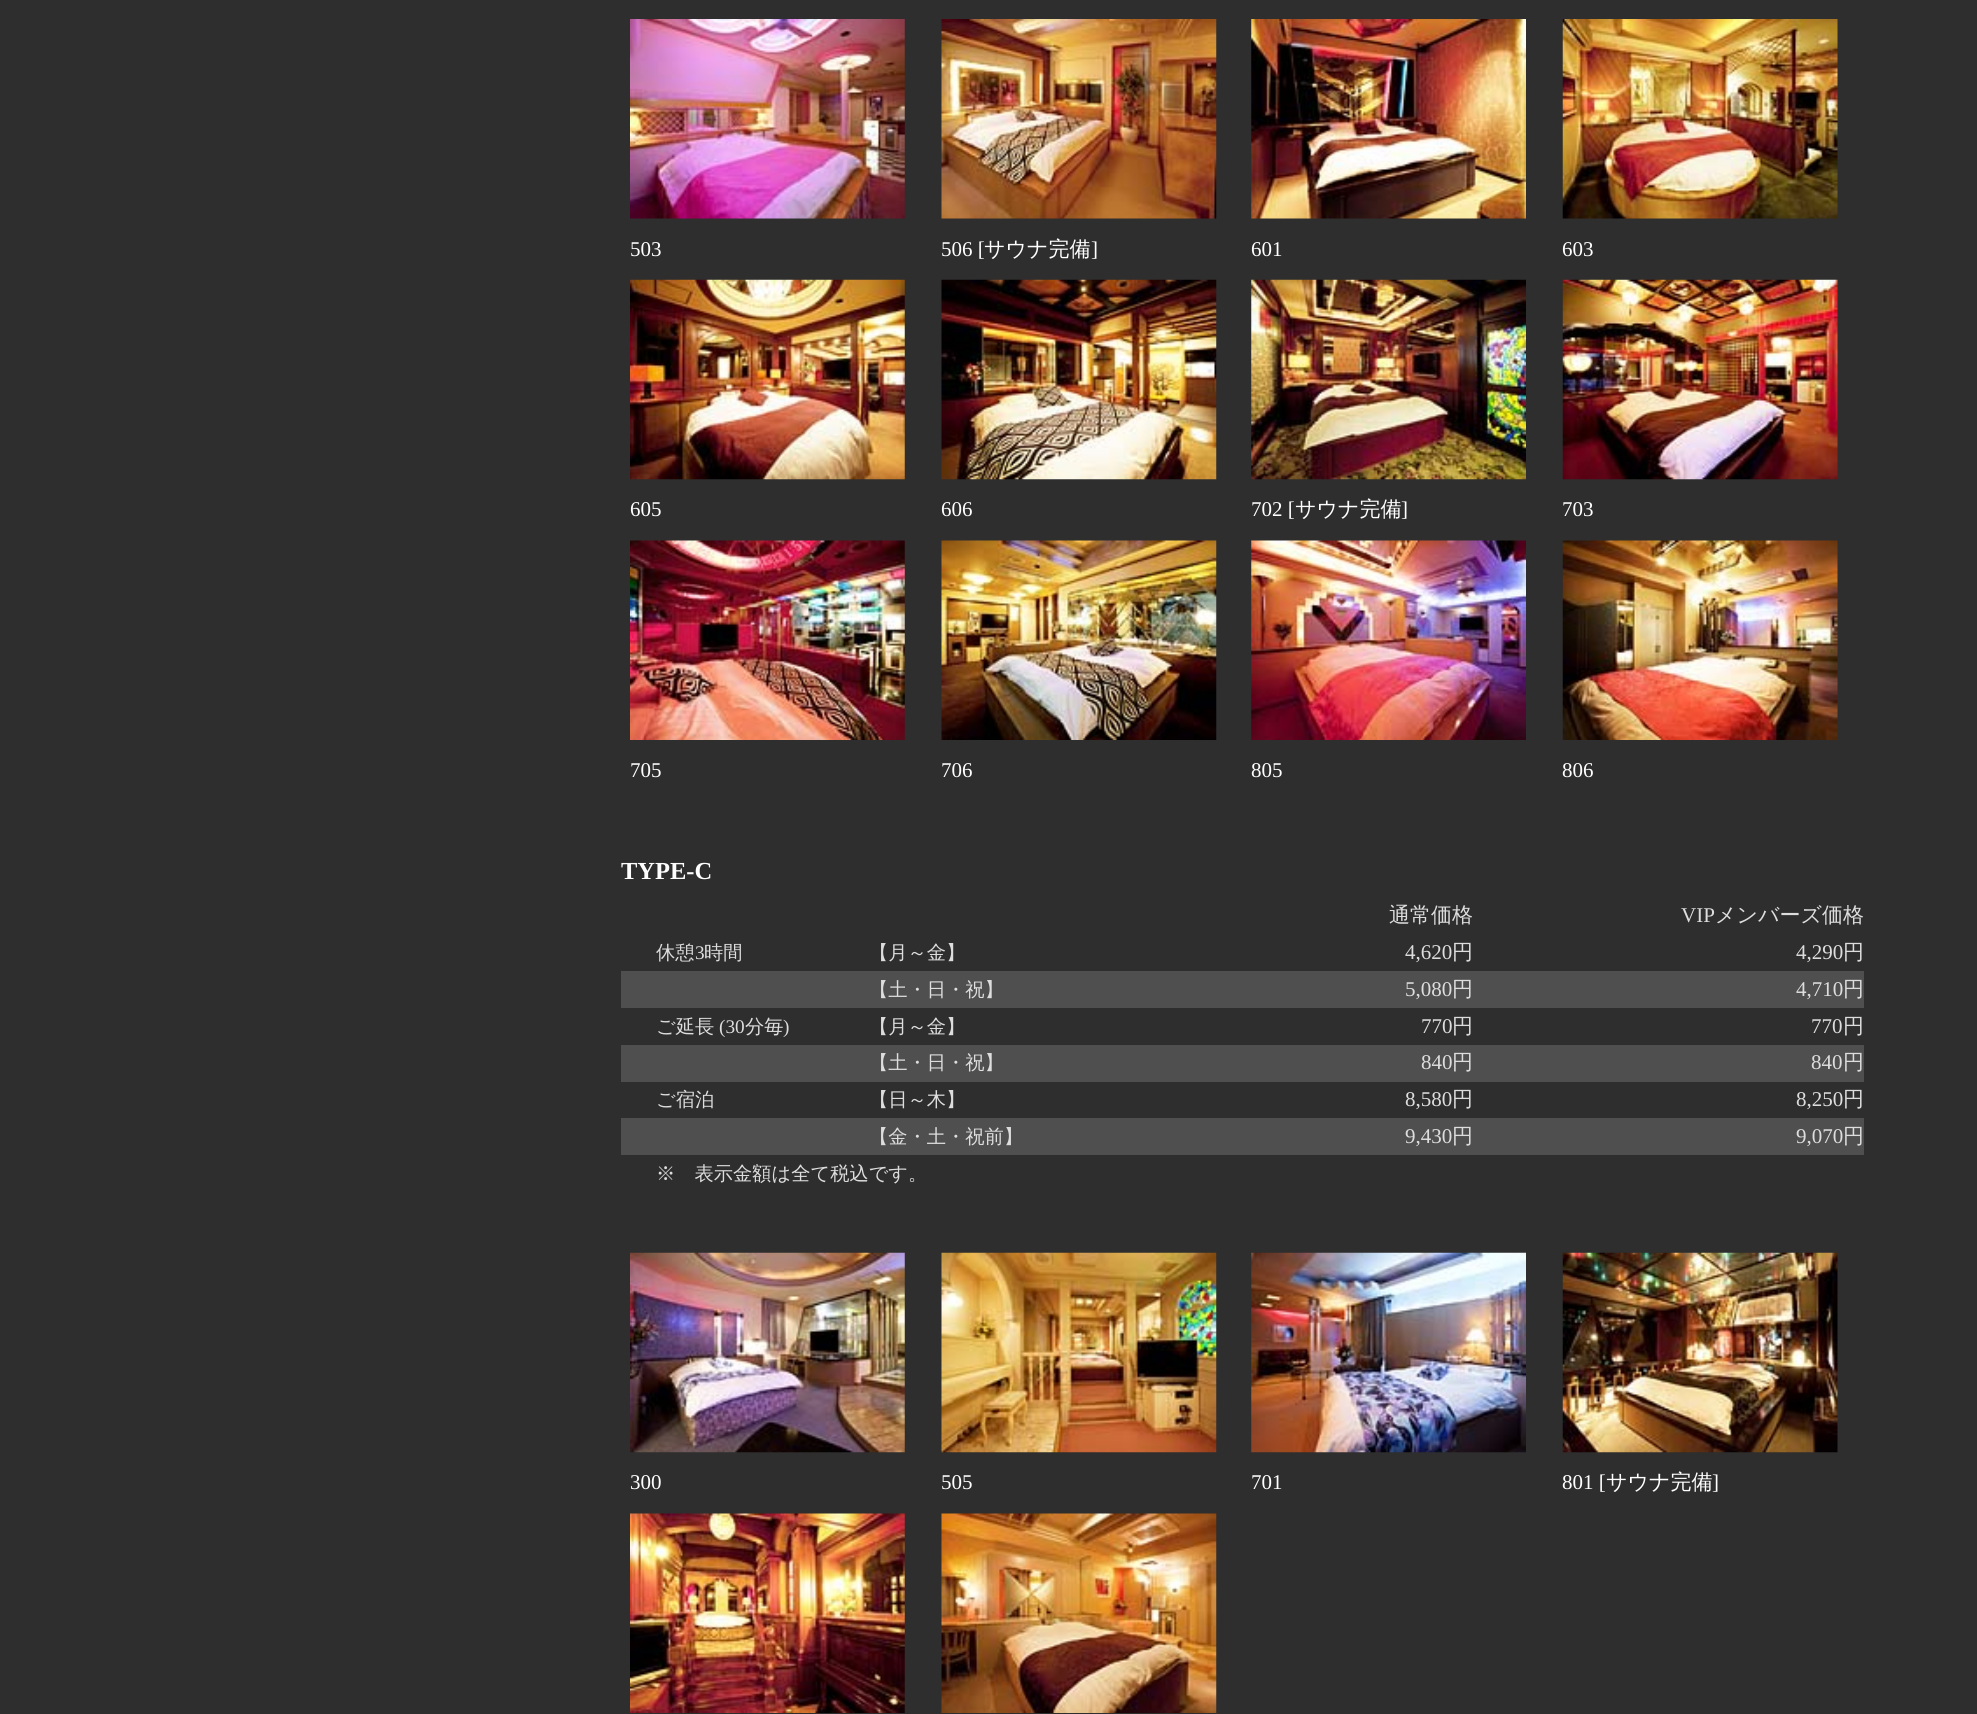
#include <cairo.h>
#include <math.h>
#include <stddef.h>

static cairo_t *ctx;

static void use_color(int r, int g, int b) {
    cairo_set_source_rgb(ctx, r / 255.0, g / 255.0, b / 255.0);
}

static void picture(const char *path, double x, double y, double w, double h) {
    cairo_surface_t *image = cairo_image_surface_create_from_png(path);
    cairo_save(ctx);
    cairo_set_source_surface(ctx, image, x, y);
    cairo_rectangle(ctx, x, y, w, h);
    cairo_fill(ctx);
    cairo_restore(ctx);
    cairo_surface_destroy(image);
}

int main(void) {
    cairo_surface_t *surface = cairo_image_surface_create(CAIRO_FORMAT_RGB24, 1977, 1714);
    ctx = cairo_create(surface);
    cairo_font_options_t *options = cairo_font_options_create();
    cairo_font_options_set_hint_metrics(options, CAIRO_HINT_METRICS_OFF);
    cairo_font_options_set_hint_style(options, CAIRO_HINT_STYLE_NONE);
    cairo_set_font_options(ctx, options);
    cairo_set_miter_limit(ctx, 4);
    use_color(46, 46, 46);
    cairo_paint(ctx);
    picture("img1.png", 630, 19, 275, 200);
    picture("img2.png", 941, 19, 276, 200);
    picture("img3.png", 1251, 19, 275, 200);
    picture("img4.png", 1562, 19, 276, 200);
    cairo_select_font_face(ctx, "Liberation Serif", CAIRO_FONT_SLANT_NORMAL, CAIRO_FONT_WEIGHT_NORMAL);
    cairo_set_font_size(ctx, 21);
    use_color(255, 255, 255);
    cairo_move_to(ctx, 630, 256);
    cairo_show_text(ctx, "503");
    cairo_move_to(ctx, 941, 256);
    cairo_show_text(ctx, "506 [");
    cairo_select_font_face(ctx, "WenQuanYi Zen Hei Medium", CAIRO_FONT_SLANT_NORMAL, CAIRO_FONT_WEIGHT_NORMAL);
    cairo_move_to(ctx, 984, 256);
    cairo_show_text(ctx, "サウナ完備");
    cairo_select_font_face(ctx, "Liberation Serif", CAIRO_FONT_SLANT_NORMAL, CAIRO_FONT_WEIGHT_NORMAL);
    cairo_move_to(ctx, 1091, 256);
    cairo_show_text(ctx, "]");
    cairo_move_to(ctx, 1251, 256);
    cairo_show_text(ctx, "601");
    cairo_move_to(ctx, 1562, 256);
    cairo_show_text(ctx, "603");
    picture("img5.png", 630, 279, 275, 201);
    picture("img6.png", 941, 279, 276, 201);
    picture("img7.png", 1251, 279, 275, 201);
    picture("img8.png", 1562, 279, 276, 201);
    cairo_move_to(ctx, 630, 516);
    cairo_show_text(ctx, "605");
    cairo_move_to(ctx, 941, 516);
    cairo_show_text(ctx, "606");
    cairo_move_to(ctx, 1251, 516);
    cairo_show_text(ctx, "702 [");
    cairo_select_font_face(ctx, "WenQuanYi Zen Hei Medium", CAIRO_FONT_SLANT_NORMAL, CAIRO_FONT_WEIGHT_NORMAL);
    cairo_move_to(ctx, 1295, 516);
    cairo_show_text(ctx, "サウナ完備");
    cairo_select_font_face(ctx, "Liberation Serif", CAIRO_FONT_SLANT_NORMAL, CAIRO_FONT_WEIGHT_NORMAL);
    cairo_move_to(ctx, 1401, 516);
    cairo_show_text(ctx, "]");
    cairo_move_to(ctx, 1562, 516);
    cairo_show_text(ctx, "703");
    picture("img9.png", 630, 540, 275, 200);
    picture("img10.png", 941, 540, 276, 200);
    picture("img11.png", 1251, 540, 275, 200);
    picture("img12.png", 1562, 540, 276, 200);
    cairo_move_to(ctx, 630, 777);
    cairo_show_text(ctx, "705");
    cairo_move_to(ctx, 941, 777);
    cairo_show_text(ctx, "706");
    cairo_move_to(ctx, 1251, 777);
    cairo_show_text(ctx, "805");
    cairo_move_to(ctx, 1562, 777);
    cairo_show_text(ctx, "806");
    cairo_select_font_face(ctx, "Liberation Serif", CAIRO_FONT_SLANT_NORMAL, CAIRO_FONT_WEIGHT_BOLD);
    cairo_set_font_size(ctx, 24.5);
    cairo_move_to(ctx, 621, 879);
    cairo_show_text(ctx, "TYPE-C");
    cairo_select_font_face(ctx, "WenQuanYi Zen Hei Medium", CAIRO_FONT_SLANT_NORMAL, CAIRO_FONT_WEIGHT_NORMAL);
    cairo_set_font_size(ctx, 21);
    use_color(221, 221, 221);
    cairo_move_to(ctx, 1389, 922);
    cairo_show_text(ctx, "通常価格");
    cairo_select_font_face(ctx, "Liberation Serif", CAIRO_FONT_SLANT_NORMAL, CAIRO_FONT_WEIGHT_NORMAL);
    cairo_move_to(ctx, 1681, 922);
    cairo_show_text(ctx, "VIP");
    cairo_select_font_face(ctx, "WenQuanYi Zen Hei Medium", CAIRO_FONT_SLANT_NORMAL, CAIRO_FONT_WEIGHT_NORMAL);
    cairo_move_to(ctx, 1715, 922);
    cairo_show_text(ctx, "メンバーズ価格");
    cairo_set_font_size(ctx, 19.25);
    cairo_move_to(ctx, 656, 959);
    cairo_show_text(ctx, "休憩");
    cairo_select_font_face(ctx, "Liberation Serif", CAIRO_FONT_SLANT_NORMAL, CAIRO_FONT_WEIGHT_NORMAL);
    cairo_move_to(ctx, 695, 959);
    cairo_show_text(ctx, "3");
    cairo_select_font_face(ctx, "WenQuanYi Zen Hei Medium", CAIRO_FONT_SLANT_NORMAL, CAIRO_FONT_WEIGHT_NORMAL);
    cairo_move_to(ctx, 704, 959);
    cairo_show_text(ctx, "時間");
    cairo_move_to(ctx, 869, 959);
    cairo_show_text(ctx, "【月～金】");
    cairo_select_font_face(ctx, "Liberation Serif", CAIRO_FONT_SLANT_NORMAL, CAIRO_FONT_WEIGHT_NORMAL);
    cairo_set_font_size(ctx, 21);
    cairo_move_to(ctx, 1405, 959);
    cairo_show_text(ctx, "4,620");
    cairo_select_font_face(ctx, "WenQuanYi Zen Hei Medium", CAIRO_FONT_SLANT_NORMAL, CAIRO_FONT_WEIGHT_NORMAL);
    cairo_move_to(ctx, 1452, 959);
    cairo_show_text(ctx, "円");
    cairo_select_font_face(ctx, "Liberation Serif", CAIRO_FONT_SLANT_NORMAL, CAIRO_FONT_WEIGHT_NORMAL);
    cairo_move_to(ctx, 1796, 959);
    cairo_show_text(ctx, "4,290");
    cairo_select_font_face(ctx, "WenQuanYi Zen Hei Medium", CAIRO_FONT_SLANT_NORMAL, CAIRO_FONT_WEIGHT_NORMAL);
    cairo_move_to(ctx, 1843, 959);
    cairo_show_text(ctx, "円");
    use_color(79, 79, 79);
    cairo_rectangle(ctx, 621, 971, 1243, 37);
    cairo_fill(ctx);
    cairo_set_font_size(ctx, 19.25);
    use_color(221, 221, 221);
    cairo_move_to(ctx, 869, 996);
    cairo_show_text(ctx, "【土・日・祝】");
    cairo_select_font_face(ctx, "Liberation Serif", CAIRO_FONT_SLANT_NORMAL, CAIRO_FONT_WEIGHT_NORMAL);
    cairo_set_font_size(ctx, 21);
    cairo_move_to(ctx, 1405, 996);
    cairo_show_text(ctx, "5,080");
    cairo_select_font_face(ctx, "WenQuanYi Zen Hei Medium", CAIRO_FONT_SLANT_NORMAL, CAIRO_FONT_WEIGHT_NORMAL);
    cairo_move_to(ctx, 1452, 996);
    cairo_show_text(ctx, "円");
    cairo_select_font_face(ctx, "Liberation Serif", CAIRO_FONT_SLANT_NORMAL, CAIRO_FONT_WEIGHT_NORMAL);
    cairo_move_to(ctx, 1796, 996);
    cairo_show_text(ctx, "4,710");
    cairo_select_font_face(ctx, "WenQuanYi Zen Hei Medium", CAIRO_FONT_SLANT_NORMAL, CAIRO_FONT_WEIGHT_NORMAL);
    cairo_move_to(ctx, 1843, 996);
    cairo_show_text(ctx, "円");
    cairo_set_font_size(ctx, 19.25);
    cairo_move_to(ctx, 656, 1033);
    cairo_show_text(ctx, "ご延長");
    cairo_select_font_face(ctx, "Liberation Serif", CAIRO_FONT_SLANT_NORMAL, CAIRO_FONT_WEIGHT_NORMAL);
    cairo_move_to(ctx, 719, 1033);
    cairo_show_text(ctx, "(30");
    cairo_select_font_face(ctx, "WenQuanYi Zen Hei Medium", CAIRO_FONT_SLANT_NORMAL, CAIRO_FONT_WEIGHT_NORMAL);
    cairo_move_to(ctx, 745, 1033);
    cairo_show_text(ctx, "分毎");
    cairo_select_font_face(ctx, "Liberation Serif", CAIRO_FONT_SLANT_NORMAL, CAIRO_FONT_WEIGHT_NORMAL);
    cairo_move_to(ctx, 783, 1033);
    cairo_show_text(ctx, ")");
    cairo_select_font_face(ctx, "WenQuanYi Zen Hei Medium", CAIRO_FONT_SLANT_NORMAL, CAIRO_FONT_WEIGHT_NORMAL);
    cairo_move_to(ctx, 869, 1033);
    cairo_show_text(ctx, "【月～金】");
    cairo_select_font_face(ctx, "Liberation Serif", CAIRO_FONT_SLANT_NORMAL, CAIRO_FONT_WEIGHT_NORMAL);
    cairo_set_font_size(ctx, 21);
    cairo_move_to(ctx, 1421, 1033);
    cairo_show_text(ctx, "770");
    cairo_select_font_face(ctx, "WenQuanYi Zen Hei Medium", CAIRO_FONT_SLANT_NORMAL, CAIRO_FONT_WEIGHT_NORMAL);
    cairo_move_to(ctx, 1452, 1033);
    cairo_show_text(ctx, "円");
    cairo_select_font_face(ctx, "Liberation Serif", CAIRO_FONT_SLANT_NORMAL, CAIRO_FONT_WEIGHT_NORMAL);
    cairo_move_to(ctx, 1811, 1033);
    cairo_show_text(ctx, "770");
    cairo_select_font_face(ctx, "WenQuanYi Zen Hei Medium", CAIRO_FONT_SLANT_NORMAL, CAIRO_FONT_WEIGHT_NORMAL);
    cairo_move_to(ctx, 1843, 1033);
    cairo_show_text(ctx, "円");
    use_color(79, 79, 79);
    cairo_rectangle(ctx, 621, 1045, 1243, 37);
    cairo_fill(ctx);
    cairo_set_font_size(ctx, 19.25);
    use_color(221, 221, 221);
    cairo_move_to(ctx, 869, 1069);
    cairo_show_text(ctx, "【土・日・祝】");
    cairo_select_font_face(ctx, "Liberation Serif", CAIRO_FONT_SLANT_NORMAL, CAIRO_FONT_WEIGHT_NORMAL);
    cairo_set_font_size(ctx, 21);
    cairo_move_to(ctx, 1421, 1069);
    cairo_show_text(ctx, "840");
    cairo_select_font_face(ctx, "WenQuanYi Zen Hei Medium", CAIRO_FONT_SLANT_NORMAL, CAIRO_FONT_WEIGHT_NORMAL);
    cairo_move_to(ctx, 1452, 1069);
    cairo_show_text(ctx, "円");
    cairo_select_font_face(ctx, "Liberation Serif", CAIRO_FONT_SLANT_NORMAL, CAIRO_FONT_WEIGHT_NORMAL);
    cairo_move_to(ctx, 1811, 1069);
    cairo_show_text(ctx, "840");
    cairo_select_font_face(ctx, "WenQuanYi Zen Hei Medium", CAIRO_FONT_SLANT_NORMAL, CAIRO_FONT_WEIGHT_NORMAL);
    cairo_move_to(ctx, 1843, 1069);
    cairo_show_text(ctx, "円");
    cairo_set_font_size(ctx, 19.25);
    cairo_move_to(ctx, 656, 1106);
    cairo_show_text(ctx, "ご宿泊");
    cairo_move_to(ctx, 869, 1106);
    cairo_show_text(ctx, "【日～木】");
    cairo_select_font_face(ctx, "Liberation Serif", CAIRO_FONT_SLANT_NORMAL, CAIRO_FONT_WEIGHT_NORMAL);
    cairo_set_font_size(ctx, 21);
    cairo_move_to(ctx, 1405, 1106);
    cairo_show_text(ctx, "8,580");
    cairo_select_font_face(ctx, "WenQuanYi Zen Hei Medium", CAIRO_FONT_SLANT_NORMAL, CAIRO_FONT_WEIGHT_NORMAL);
    cairo_move_to(ctx, 1452, 1106);
    cairo_show_text(ctx, "円");
    cairo_select_font_face(ctx, "Liberation Serif", CAIRO_FONT_SLANT_NORMAL, CAIRO_FONT_WEIGHT_NORMAL);
    cairo_move_to(ctx, 1796, 1106);
    cairo_show_text(ctx, "8,250");
    cairo_select_font_face(ctx, "WenQuanYi Zen Hei Medium", CAIRO_FONT_SLANT_NORMAL, CAIRO_FONT_WEIGHT_NORMAL);
    cairo_move_to(ctx, 1843, 1106);
    cairo_show_text(ctx, "円");
    use_color(79, 79, 79);
    cairo_rectangle(ctx, 621, 1118, 1243, 37);
    cairo_fill(ctx);
    cairo_set_font_size(ctx, 19.25);
    use_color(221, 221, 221);
    cairo_move_to(ctx, 869, 1143);
    cairo_show_text(ctx, "【金・土・祝前】");
    cairo_select_font_face(ctx, "Liberation Serif", CAIRO_FONT_SLANT_NORMAL, CAIRO_FONT_WEIGHT_NORMAL);
    cairo_set_font_size(ctx, 21);
    cairo_move_to(ctx, 1405, 1143);
    cairo_show_text(ctx, "9,430");
    cairo_select_font_face(ctx, "WenQuanYi Zen Hei Medium", CAIRO_FONT_SLANT_NORMAL, CAIRO_FONT_WEIGHT_NORMAL);
    cairo_move_to(ctx, 1452, 1143);
    cairo_show_text(ctx, "円");
    cairo_select_font_face(ctx, "Liberation Serif", CAIRO_FONT_SLANT_NORMAL, CAIRO_FONT_WEIGHT_NORMAL);
    cairo_move_to(ctx, 1796, 1143);
    cairo_show_text(ctx, "9,070");
    cairo_select_font_face(ctx, "WenQuanYi Zen Hei Medium", CAIRO_FONT_SLANT_NORMAL, CAIRO_FONT_WEIGHT_NORMAL);
    cairo_move_to(ctx, 1843, 1143);
    cairo_show_text(ctx, "円");
    cairo_set_font_size(ctx, 19.25);
    cairo_move_to(ctx, 656, 1180);
    cairo_show_text(ctx, "※　表示金額は全て税込です。");
    picture("img13.png", 630, 1252, 275, 201);
    picture("img14.png", 941, 1252, 276, 201);
    picture("img15.png", 1251, 1252, 275, 201);
    picture("img16.png", 1562, 1252, 276, 201);
    cairo_select_font_face(ctx, "Liberation Serif", CAIRO_FONT_SLANT_NORMAL, CAIRO_FONT_WEIGHT_NORMAL);
    cairo_set_font_size(ctx, 21);
    use_color(255, 255, 255);
    cairo_move_to(ctx, 630, 1489);
    cairo_show_text(ctx, "300");
    cairo_move_to(ctx, 941, 1489);
    cairo_show_text(ctx, "505");
    cairo_move_to(ctx, 1251, 1489);
    cairo_show_text(ctx, "701");
    cairo_move_to(ctx, 1562, 1489);
    cairo_show_text(ctx, "801 [");
    cairo_select_font_face(ctx, "WenQuanYi Zen Hei Medium", CAIRO_FONT_SLANT_NORMAL, CAIRO_FONT_WEIGHT_NORMAL);
    cairo_move_to(ctx, 1606, 1489);
    cairo_show_text(ctx, "サウナ完備");
    cairo_select_font_face(ctx, "Liberation Serif", CAIRO_FONT_SLANT_NORMAL, CAIRO_FONT_WEIGHT_NORMAL);
    cairo_move_to(ctx, 1712, 1489);
    cairo_show_text(ctx, "]");
    picture("img17.png", 630, 1513, 275, 200);
    picture("img18.png", 941, 1513, 276, 200);
    cairo_surface_write_to_png(surface, "result.png");
    cairo_font_options_destroy(options);
    cairo_destroy(ctx);
    cairo_surface_destroy(surface);
    return 0;
}
